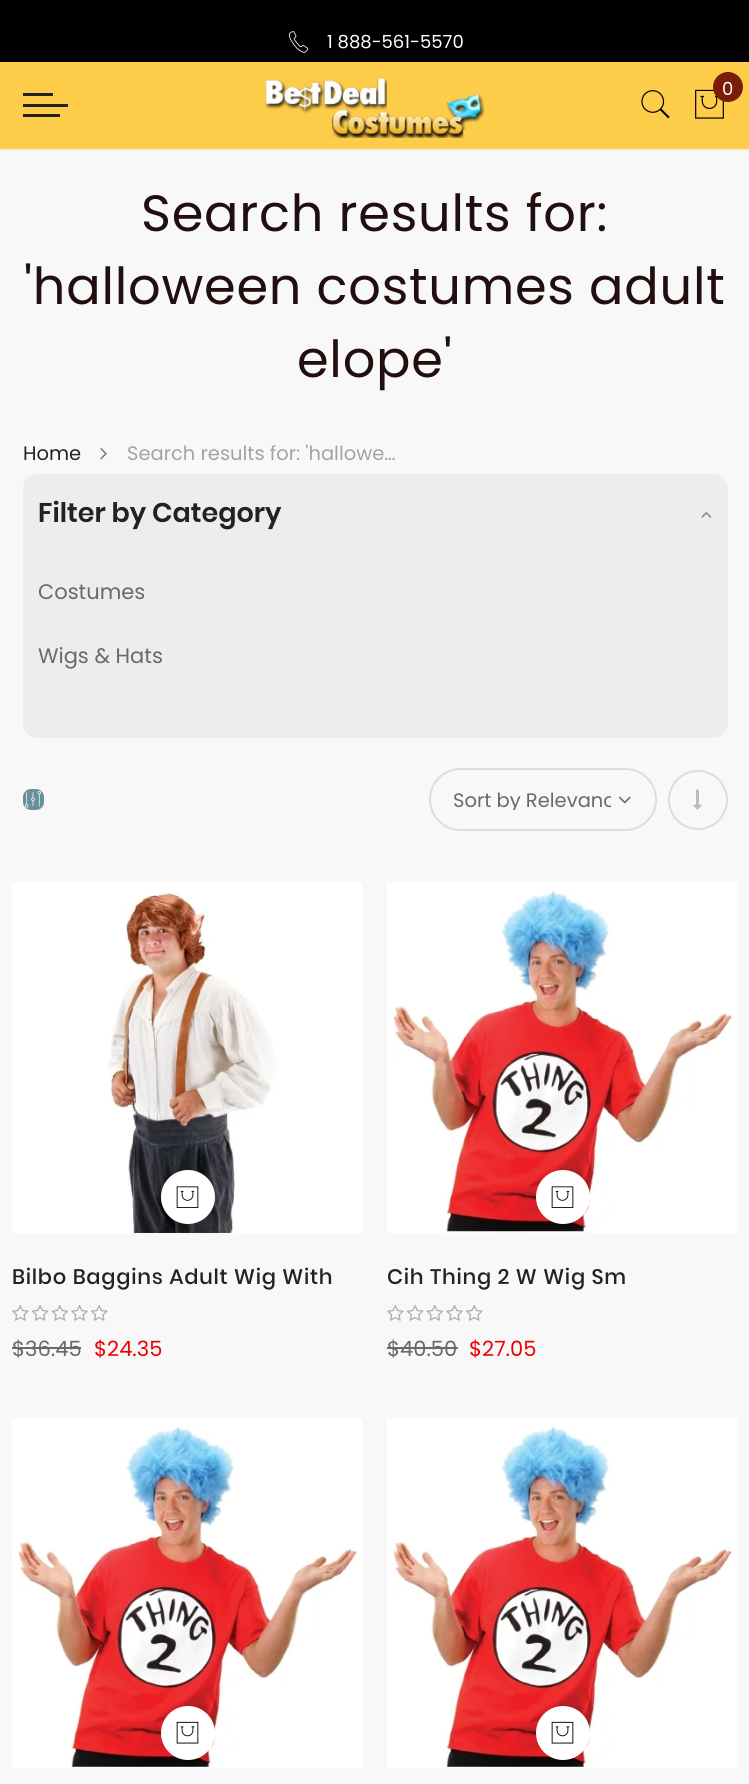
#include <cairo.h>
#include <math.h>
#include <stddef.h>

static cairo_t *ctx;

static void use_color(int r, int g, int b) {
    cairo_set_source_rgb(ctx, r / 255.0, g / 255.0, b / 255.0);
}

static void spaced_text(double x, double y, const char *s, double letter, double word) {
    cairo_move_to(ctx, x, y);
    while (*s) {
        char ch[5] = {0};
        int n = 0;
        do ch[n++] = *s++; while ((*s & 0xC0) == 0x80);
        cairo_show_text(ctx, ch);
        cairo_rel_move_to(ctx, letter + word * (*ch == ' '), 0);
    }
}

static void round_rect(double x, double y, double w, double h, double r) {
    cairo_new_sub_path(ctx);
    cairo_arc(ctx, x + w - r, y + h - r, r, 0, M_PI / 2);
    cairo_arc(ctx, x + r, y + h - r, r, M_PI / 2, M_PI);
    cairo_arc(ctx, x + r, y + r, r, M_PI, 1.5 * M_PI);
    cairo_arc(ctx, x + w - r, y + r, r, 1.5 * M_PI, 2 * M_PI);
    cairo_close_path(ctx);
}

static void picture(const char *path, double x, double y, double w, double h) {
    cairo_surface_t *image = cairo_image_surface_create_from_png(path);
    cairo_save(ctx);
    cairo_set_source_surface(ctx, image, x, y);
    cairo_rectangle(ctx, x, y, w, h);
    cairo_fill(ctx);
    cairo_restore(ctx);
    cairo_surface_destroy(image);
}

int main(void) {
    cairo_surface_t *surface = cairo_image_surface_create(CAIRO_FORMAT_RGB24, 749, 1784);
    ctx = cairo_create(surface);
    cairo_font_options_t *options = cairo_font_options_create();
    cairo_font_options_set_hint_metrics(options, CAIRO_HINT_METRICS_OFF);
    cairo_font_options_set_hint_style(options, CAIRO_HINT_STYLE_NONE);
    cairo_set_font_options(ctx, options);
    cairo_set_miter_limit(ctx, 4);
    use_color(248, 248, 248);
    cairo_paint(ctx);
    use_color(238, 238, 238);
    cairo_rectangle(ctx, 0, 149, 749, 2);
    cairo_fill(ctx);
    use_color(0, 0, 0);
    cairo_rectangle(ctx, 0, 0, 749, 62);
    cairo_fill(ctx);
    picture("img1.png", 288, 31, 21, 22);
    cairo_select_font_face(ctx, "Poppins", CAIRO_FONT_SLANT_NORMAL, CAIRO_FONT_WEIGHT_NORMAL);
    cairo_set_font_size(ctx, 18);
    use_color(255, 255, 255);
    cairo_move_to(ctx, 327, 48);
    cairo_show_text(ctx, "1 888-561-5570");
    use_color(253, 204, 72);
    cairo_rectangle(ctx, 0, 62, 749, 87);
    cairo_fill(ctx);
    picture("img2.png", 265, 77, 220, 61);
    picture("img3.png", 695, 89, 29, 30);
    use_color(123, 28, 7);
    cairo_arc(ctx, 728, 87, 15, 0, 2 * M_PI);
    cairo_fill(ctx);
    use_color(255, 255, 255);
    cairo_move_to(ctx, 722, 95);
    cairo_show_text(ctx, "0");
    picture("img4.png", 641, 90, 29, 29);
    use_color(34, 34, 34);
    cairo_rectangle(ctx, 23, 93, 30, 3);
    cairo_fill(ctx);
    cairo_rectangle(ctx, 23, 104, 45, 3);
    cairo_fill(ctx);
    cairo_rectangle(ctx, 23, 114, 37, 3);
    cairo_fill(ctx);
    cairo_set_font_size(ctx, 51);
    use_color(34, 14, 14);
    spaced_text(141, 231, "Search results for:", 0.75, 0);
    spaced_text(24, 304, "'halloween costumes adult", 0.75, 0);
    spaced_text(297, 377, "elope'", 0.75, 0);
    cairo_set_font_size(ctx, 19.5);
    use_color(34, 34, 34);
    cairo_move_to(ctx, 23, 460);
    cairo_show_text(ctx, "Home");
    picture("img5.png", 100, 448, 7, 12);
    use_color(163, 163, 163);
    cairo_move_to(ctx, 127, 460);
    cairo_show_text(ctx, "Search results for: 'hallowe…");
    use_color(237, 237, 237);
    round_rect(23, 474, 705, 264, 15);
    cairo_fill(ctx);
    cairo_select_font_face(ctx, "Poppins SemiBold", CAIRO_FONT_SLANT_NORMAL, CAIRO_FONT_WEIGHT_NORMAL);
    cairo_set_font_size(ctx, 27);
    use_color(34, 34, 34);
    cairo_move_to(ctx, 38, 522);
    cairo_show_text(ctx, "Filter by Category");
    picture("img6.png", 701, 512, 11, 6);
    use_color(240, 240, 240);
    cairo_rectangle(ctx, 38, 621, 675, 2);
    cairo_fill(ctx);
    cairo_select_font_face(ctx, "Poppins", CAIRO_FONT_SLANT_NORMAL, CAIRO_FONT_WEIGHT_NORMAL);
    cairo_set_font_size(ctx, 21);
    use_color(105, 105, 105);
    cairo_move_to(ctx, 38, 599);
    cairo_show_text(ctx, "Costumes");
    use_color(240, 240, 240);
    cairo_rectangle(ctx, 38, 684, 675, 2);
    cairo_fill(ctx);
    use_color(105, 105, 105);
    cairo_move_to(ctx, 38, 663);
    cairo_show_text(ctx, "Wigs & Hats");
    use_color(105, 144, 153);
    round_rect(23, 789, 21, 21, 8);
    cairo_fill(ctx);
    picture("img7.png", 25, 790, 16, 18);
    round_rect(430, 769, 226, 61, 30.5);
    use_color(221, 221, 221);
    cairo_stroke(ctx);
    cairo_save(ctx);
    cairo_rectangle(ctx, 453, 791, 158, 19);
    cairo_clip(ctx);
    cairo_set_font_size(ctx, 19.5);
    use_color(105, 105, 105);
    cairo_move_to(ctx, 453, 807);
    cairo_show_text(ctx, "Sort by Relevanc");
    cairo_restore(ctx);
    picture("img8.png", 619, 796, 12, 8);
    cairo_arc(ctx, 698, 800, 29, 0, 2 * M_PI);
    cairo_stroke(ctx);
    picture("img9.png", 693, 789, 9, 21);
    picture("img10.png", 12, 882, 351, 351);
    use_color(255, 255, 255);
    cairo_arc(ctx, 188, 1197, 27, 0, 2 * M_PI);
    cairo_fill(ctx);
    picture("img11.png", 176, 1186, 23, 22);
    cairo_select_font_face(ctx, "Poppins Medium", CAIRO_FONT_SLANT_NORMAL, CAIRO_FONT_WEIGHT_NORMAL);
    use_color(34, 34, 34);
    spaced_text(12, 1284, "Bilbo Baggins Adult Wig With", 0.75, 0);
    picture("img12.png", 12, 1305, 96, 16);
    cairo_select_font_face(ctx, "Poppins", CAIRO_FONT_SLANT_NORMAL, CAIRO_FONT_WEIGHT_NORMAL);
    use_color(105, 105, 105);
    cairo_move_to(ctx, 12, 1356);
    cairo_show_text(ctx, "$36.45");
    cairo_rectangle(ctx, 12, 1347, 69, 2);
    cairo_fill(ctx);
    use_color(236, 1, 1);
    cairo_move_to(ctx, 94, 1356);
    cairo_show_text(ctx, "$24.35");
    picture("img13.png", 387, 882, 351, 351);
    use_color(255, 255, 255);
    cairo_arc(ctx, 563, 1197, 27, 0, 2 * M_PI);
    cairo_fill(ctx);
    picture("img11.png", 551, 1186, 23, 22);
    cairo_select_font_face(ctx, "Poppins Medium", CAIRO_FONT_SLANT_NORMAL, CAIRO_FONT_WEIGHT_NORMAL);
    use_color(34, 34, 34);
    spaced_text(387, 1284, "Cih Thing 2 W Wig Sm", 0.75, 0);
    picture("img12.png", 387, 1305, 96, 16);
    cairo_select_font_face(ctx, "Poppins", CAIRO_FONT_SLANT_NORMAL, CAIRO_FONT_WEIGHT_NORMAL);
    use_color(105, 105, 105);
    cairo_move_to(ctx, 387, 1356);
    cairo_show_text(ctx, "$40.50");
    cairo_rectangle(ctx, 387, 1347, 71, 2);
    cairo_fill(ctx);
    use_color(236, 1, 1);
    cairo_move_to(ctx, 469, 1356);
    cairo_show_text(ctx, "$27.05");
    picture("img14.png", 12, 1418, 351, 350);
    use_color(255, 255, 255);
    cairo_arc(ctx, 188, 1733, 27, 0, 2 * M_PI);
    cairo_fill(ctx);
    picture("img15.png", 176, 1721, 23, 23);
    picture("img14.png", 387, 1418, 351, 350);
    cairo_arc(ctx, 563, 1733, 27, 0, 2 * M_PI);
    cairo_fill(ctx);
    picture("img15.png", 551, 1721, 23, 23);
    cairo_surface_write_to_png(surface, "result.png");
    cairo_font_options_destroy(options);
    cairo_destroy(ctx);
    cairo_surface_destroy(surface);
    return 0;
}
